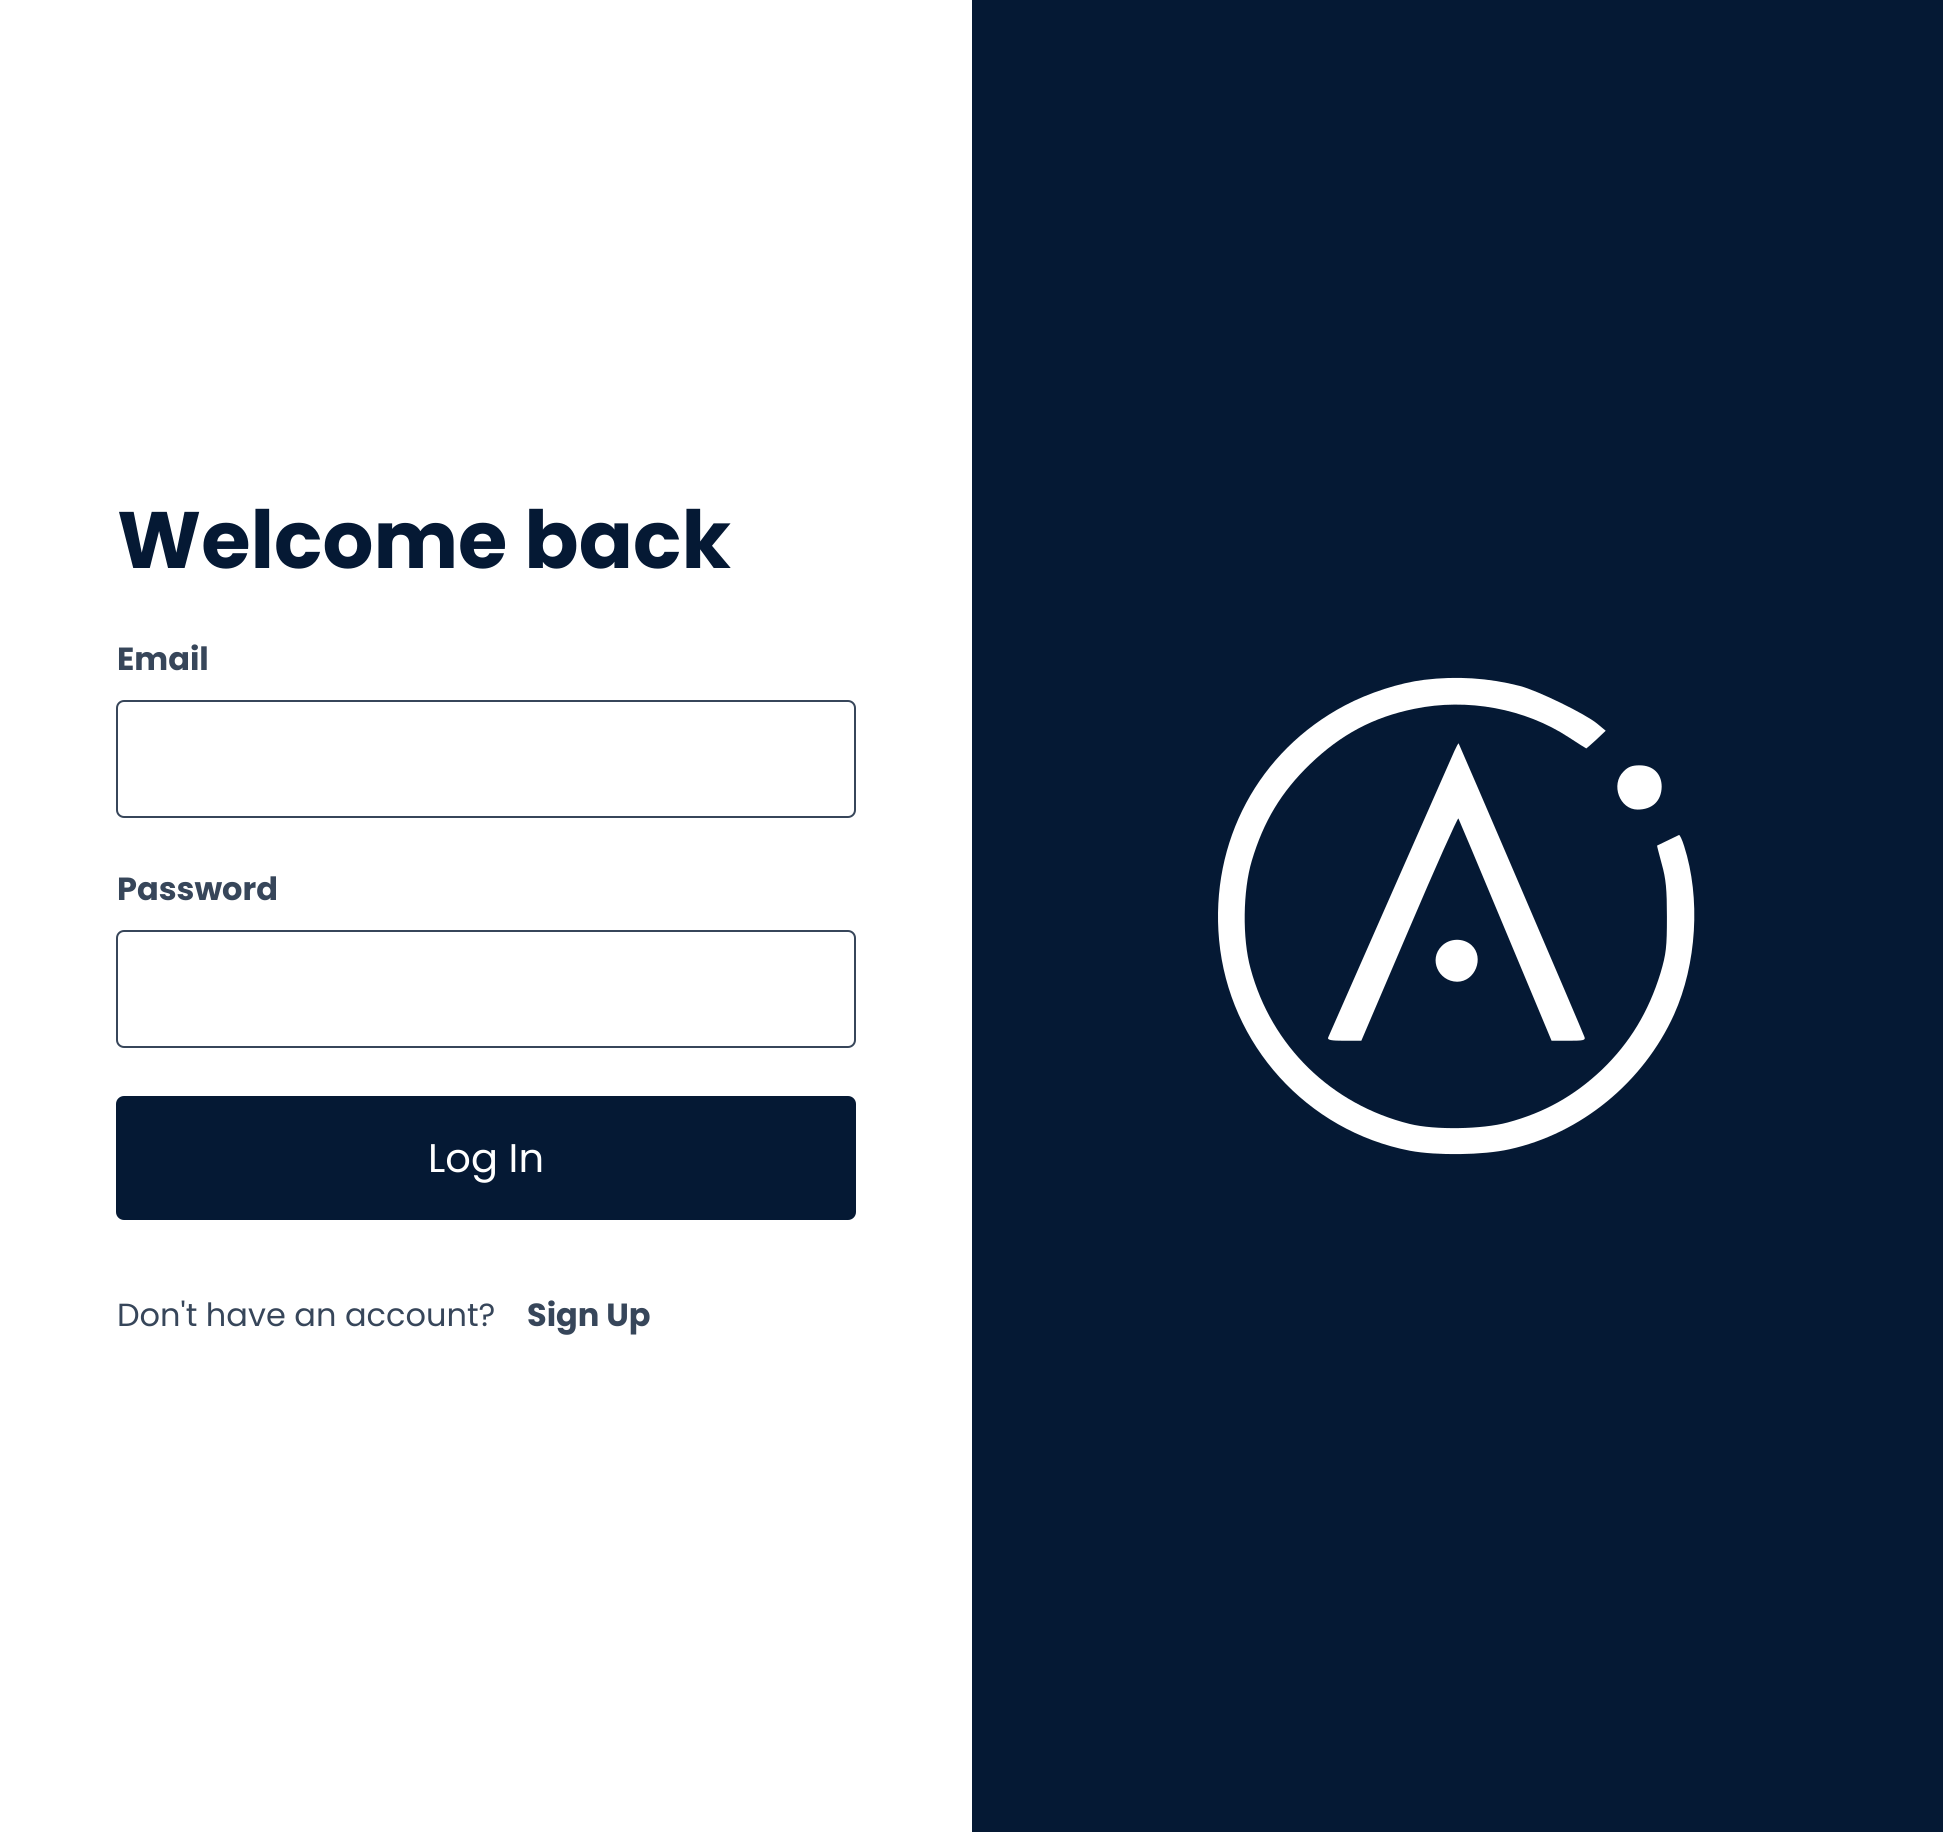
#include <cairo.h>
#include <math.h>
#include <stddef.h>

static cairo_t *ctx;

static void use_color(int r, int g, int b) {
    cairo_set_source_rgb(ctx, r / 255.0, g / 255.0, b / 255.0);
}

static void round_rect(double x, double y, double w, double h, double r) {
    cairo_new_sub_path(ctx);
    cairo_arc(ctx, x + w - r, y + h - r, r, 0, M_PI / 2);
    cairo_arc(ctx, x + r, y + h - r, r, M_PI / 2, M_PI);
    cairo_arc(ctx, x + r, y + r, r, M_PI, 1.5 * M_PI);
    cairo_arc(ctx, x + w - r, y + r, r, 1.5 * M_PI, 2 * M_PI);
    cairo_close_path(ctx);
}

static void picture(const char *path, double x, double y, double w, double h) {
    cairo_surface_t *image = cairo_image_surface_create_from_png(path);
    cairo_save(ctx);
    cairo_set_source_surface(ctx, image, x, y);
    cairo_rectangle(ctx, x, y, w, h);
    cairo_fill(ctx);
    cairo_restore(ctx);
    cairo_surface_destroy(image);
}

int main(void) {
    cairo_surface_t *surface = cairo_image_surface_create(CAIRO_FORMAT_RGB24, 1943, 1832);
    ctx = cairo_create(surface);
    cairo_font_options_t *options = cairo_font_options_create();
    cairo_font_options_set_hint_metrics(options, CAIRO_HINT_METRICS_OFF);
    cairo_font_options_set_hint_style(options, CAIRO_HINT_STYLE_NONE);
    cairo_set_font_options(ctx, options);
    cairo_set_miter_limit(ctx, 4);
    use_color(255, 255, 255);
    cairo_paint(ctx);
    cairo_select_font_face(ctx, "Poppins", CAIRO_FONT_SLANT_NORMAL, CAIRO_FONT_WEIGHT_BOLD);
    cairo_set_font_size(ctx, 80);
    use_color(5, 25, 52);
    cairo_move_to(ctx, 117, 568);
    cairo_show_text(ctx, "Welcome back");
    cairo_set_font_size(ctx, 32);
    use_color(55, 70, 90);
    cairo_move_to(ctx, 117, 670);
    cairo_show_text(ctx, "Email");
    round_rect(117, 701, 738, 116, 7);
    cairo_stroke(ctx);
    cairo_move_to(ctx, 117, 900);
    cairo_show_text(ctx, "Password");
    round_rect(117, 931, 738, 116, 7);
    cairo_stroke(ctx);
    use_color(5, 25, 52);
    round_rect(116, 1096, 740, 124, 8);
    cairo_fill(ctx);
    cairo_select_font_face(ctx, "Poppins", CAIRO_FONT_SLANT_NORMAL, CAIRO_FONT_WEIGHT_NORMAL);
    cairo_set_font_size(ctx, 40);
    use_color(255, 255, 255);
    cairo_move_to(ctx, 428, 1172);
    cairo_show_text(ctx, "Log In");
    cairo_set_font_size(ctx, 32);
    use_color(55, 70, 90);
    cairo_move_to(ctx, 117, 1326);
    cairo_show_text(ctx, "Don't have an account?");
    cairo_select_font_face(ctx, "Poppins", CAIRO_FONT_SLANT_NORMAL, CAIRO_FONT_WEIGHT_BOLD);
    cairo_move_to(ctx, 527, 1326);
    cairo_show_text(ctx, "Sign Up");
    use_color(5, 25, 52);
    cairo_rectangle(ctx, 972, 0, 971, 1832);
    cairo_fill(ctx);
    picture("img1.png", 1218, 677, 477, 478);
    cairo_surface_write_to_png(surface, "result.png");
    cairo_font_options_destroy(options);
    cairo_destroy(ctx);
    cairo_surface_destroy(surface);
    return 0;
}
